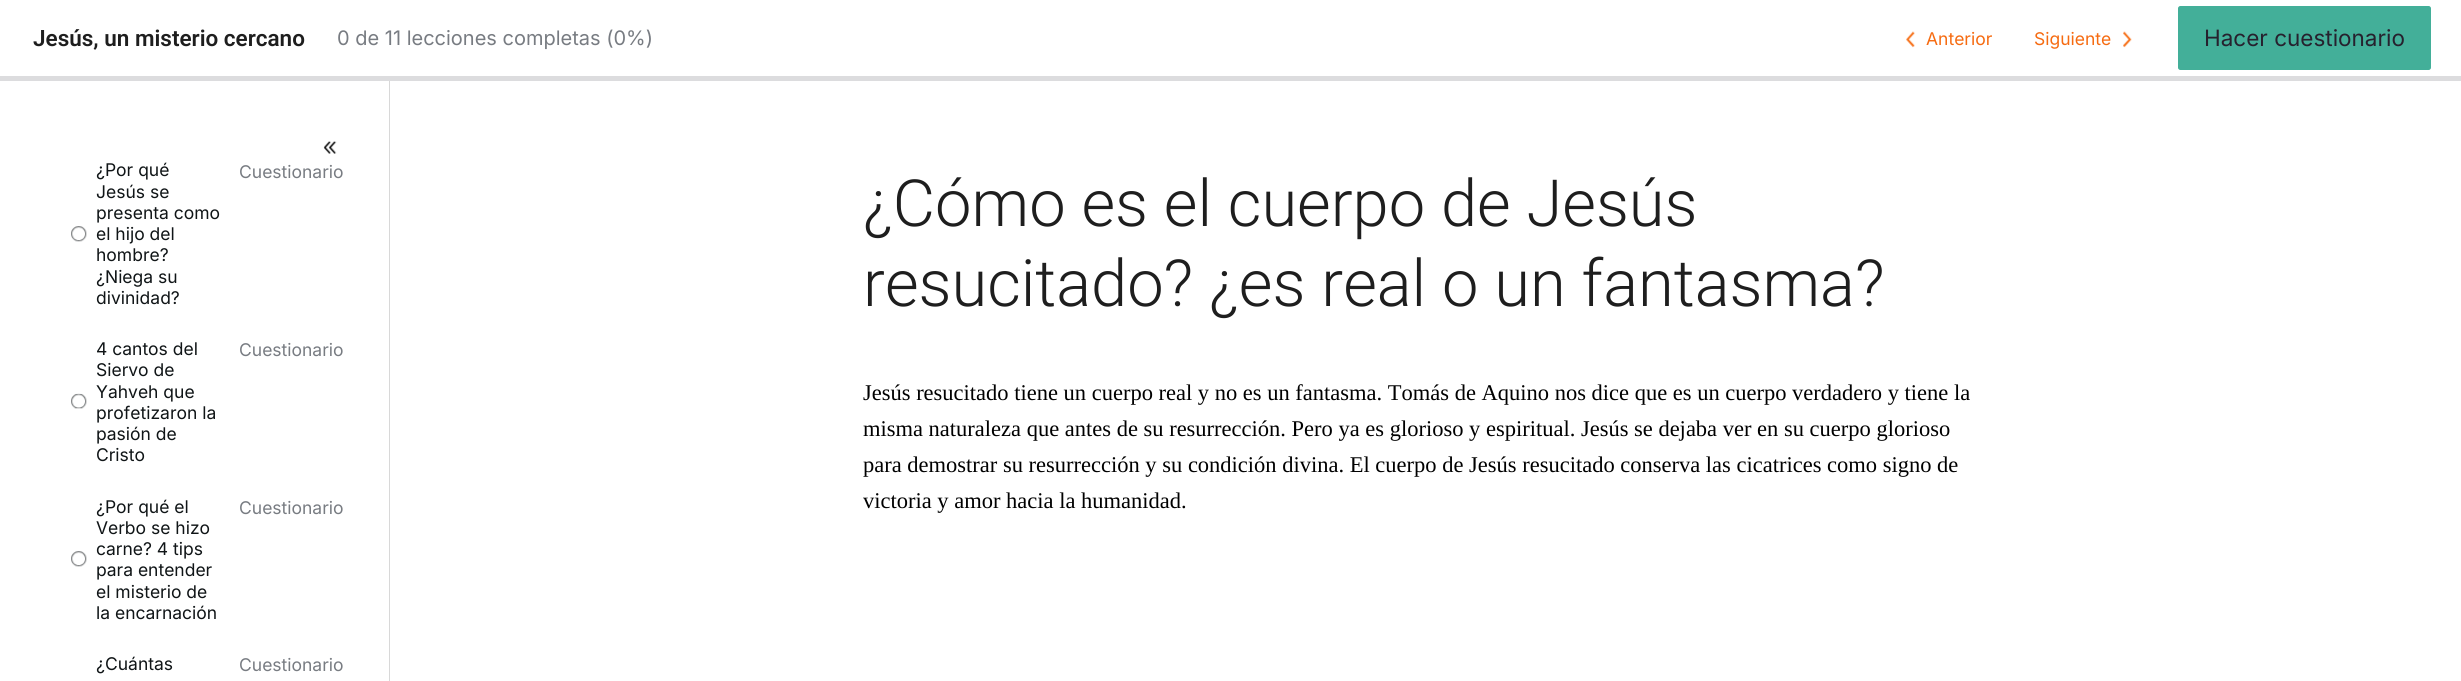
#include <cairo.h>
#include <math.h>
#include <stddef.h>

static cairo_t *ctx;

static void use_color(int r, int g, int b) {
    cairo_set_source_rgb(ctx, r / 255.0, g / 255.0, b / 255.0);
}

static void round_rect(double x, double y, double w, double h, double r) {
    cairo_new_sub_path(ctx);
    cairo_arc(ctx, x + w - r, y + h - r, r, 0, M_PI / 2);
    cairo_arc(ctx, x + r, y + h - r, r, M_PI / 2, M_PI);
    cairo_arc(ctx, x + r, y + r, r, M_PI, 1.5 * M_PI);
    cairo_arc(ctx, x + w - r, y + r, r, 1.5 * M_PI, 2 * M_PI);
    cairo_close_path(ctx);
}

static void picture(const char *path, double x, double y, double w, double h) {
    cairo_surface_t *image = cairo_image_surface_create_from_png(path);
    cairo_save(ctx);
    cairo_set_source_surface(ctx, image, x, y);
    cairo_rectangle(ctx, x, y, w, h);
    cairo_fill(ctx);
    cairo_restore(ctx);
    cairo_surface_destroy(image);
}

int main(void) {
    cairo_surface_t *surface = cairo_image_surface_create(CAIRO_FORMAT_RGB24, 2461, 681);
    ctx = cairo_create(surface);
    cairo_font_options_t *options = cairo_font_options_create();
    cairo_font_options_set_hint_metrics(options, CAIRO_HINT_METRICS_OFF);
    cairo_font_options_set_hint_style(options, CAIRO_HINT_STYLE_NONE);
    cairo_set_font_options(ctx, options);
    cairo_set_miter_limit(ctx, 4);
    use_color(255, 255, 255);
    cairo_paint(ctx);
    cairo_select_font_face(ctx, "Roboto SemiBold", CAIRO_FONT_SLANT_NORMAL, CAIRO_FONT_WEIGHT_NORMAL);
    cairo_set_font_size(ctx, 22.5);
    use_color(30, 30, 30);
    cairo_move_to(ctx, 33, 46);
    cairo_show_text(ctx, "Jesús, un misterio cercano");
    cairo_select_font_face(ctx, "Inter", CAIRO_FONT_SLANT_NORMAL, CAIRO_FONT_WEIGHT_NORMAL);
    cairo_set_font_size(ctx, 20);
    use_color(120, 124, 130);
    cairo_move_to(ctx, 337, 45);
    cairo_show_text(ctx, "0 de 11 lecciones completas (0%)");
    picture("img1.png", 1906, 31, 9, 17);
    cairo_set_font_size(ctx, 17.5);
    use_color(246, 107, 17);
    cairo_move_to(ctx, 1926, 45);
    cairo_show_text(ctx, "Anterior");
    cairo_move_to(ctx, 2034, 45);
    cairo_show_text(ctx, "Siguiente");
    picture("img2.png", 2123, 31, 9, 17);
    use_color(67, 175, 153);
    round_rect(2178.5, 6.5, 252, 63, 2);
    cairo_fill_preserve(ctx);
    cairo_set_line_width(ctx, 1);
    cairo_stroke(ctx);
    cairo_set_font_size(ctx, 22.5);
    use_color(38, 33, 46);
    cairo_move_to(ctx, 2204, 46);
    cairo_show_text(ctx, "Hacer cuestionario");
    use_color(220, 220, 222);
    cairo_rectangle(ctx, 0, 76, 2461, 5);
    cairo_fill(ctx);
    use_color(216, 216, 216);
    cairo_rectangle(ctx, 389, 81, 1, 600);
    cairo_fill(ctx);
    picture("img3.png", 323, 141, 14, 13);
    picture("img4.png", 71, 226, 16, 16);
    cairo_set_font_size(ctx, 17.5);
    use_color(16, 21, 23);
    cairo_move_to(ctx, 96, 176);
    cairo_show_text(ctx, "¿Por qué");
    cairo_move_to(ctx, 96, 198);
    cairo_show_text(ctx, "Jesús se");
    cairo_move_to(ctx, 96, 219);
    cairo_show_text(ctx, "presenta como");
    cairo_move_to(ctx, 96, 240);
    cairo_show_text(ctx, "el hijo del");
    cairo_move_to(ctx, 96, 261);
    cairo_show_text(ctx, "hombre?");
    cairo_move_to(ctx, 96, 283);
    cairo_show_text(ctx, "¿Niega su");
    cairo_move_to(ctx, 96, 304);
    cairo_show_text(ctx, "divinidad?");
    use_color(120, 124, 130);
    cairo_move_to(ctx, 239, 178);
    cairo_show_text(ctx, "Cuestionario");
    picture("img5.png", 71, 393, 16, 16);
    use_color(16, 21, 23);
    cairo_move_to(ctx, 96, 355);
    cairo_show_text(ctx, "4 cantos del");
    cairo_move_to(ctx, 96, 376);
    cairo_show_text(ctx, "Siervo de");
    cairo_move_to(ctx, 96, 398);
    cairo_show_text(ctx, "Yahveh que");
    cairo_move_to(ctx, 96, 419);
    cairo_show_text(ctx, "profetizaron la");
    cairo_move_to(ctx, 96, 440);
    cairo_show_text(ctx, "pasión de");
    cairo_move_to(ctx, 96, 461);
    cairo_show_text(ctx, "Cristo");
    use_color(120, 124, 130);
    cairo_move_to(ctx, 239, 356);
    cairo_show_text(ctx, "Cuestionario");
    picture("img6.png", 71, 551, 16, 16);
    use_color(16, 21, 23);
    cairo_move_to(ctx, 96, 513);
    cairo_show_text(ctx, "¿Por qué el");
    cairo_move_to(ctx, 96, 534);
    cairo_show_text(ctx, "Verbo se hizo");
    cairo_move_to(ctx, 96, 555);
    cairo_show_text(ctx, "carne? 4 tips");
    cairo_move_to(ctx, 96, 576);
    cairo_show_text(ctx, "para entender");
    cairo_move_to(ctx, 96, 598);
    cairo_show_text(ctx, "el misterio de");
    cairo_move_to(ctx, 96, 619);
    cairo_show_text(ctx, "la encarnación");
    use_color(120, 124, 130);
    cairo_move_to(ctx, 239, 514);
    cairo_show_text(ctx, "Cuestionario");
    use_color(16, 21, 23);
    cairo_move_to(ctx, 96, 670);
    cairo_show_text(ctx, "¿Cuántas");
    use_color(120, 124, 130);
    cairo_move_to(ctx, 239, 671);
    cairo_show_text(ctx, "Cuestionario");
    cairo_select_font_face(ctx, "Roboto Light", CAIRO_FONT_SLANT_NORMAL, CAIRO_FONT_WEIGHT_NORMAL);
    cairo_set_font_size(ctx, 65);
    use_color(30, 30, 30);
    cairo_move_to(ctx, 863, 226);
    cairo_show_text(ctx, "¿Cómo es el cuerpo de Jesús");
    cairo_move_to(ctx, 863, 306);
    cairo_show_text(ctx, "resucitado? ¿es real o un fantasma?");
    cairo_select_font_face(ctx, "Liberation Serif", CAIRO_FONT_SLANT_NORMAL, CAIRO_FONT_WEIGHT_NORMAL);
    cairo_set_font_size(ctx, 22.5);
    use_color(0, 0, 0);
    cairo_move_to(ctx, 863, 400);
    cairo_show_text(ctx, "Jesús resucitado tiene un cuerpo real y no es un fantasma. Tomás de Aquino nos dice que es un cuerpo verdadero y tiene la");
    cairo_move_to(ctx, 863, 436);
    cairo_show_text(ctx, "misma naturaleza que antes de su resurrección. Pero ya es glorioso y espiritual. Jesús se dejaba ver en su cuerpo glorioso");
    cairo_move_to(ctx, 863, 472);
    cairo_show_text(ctx, "para demostrar su resurrección y su condición divina. El cuerpo de Jesús resucitado conserva las cicatrices como signo de");
    cairo_move_to(ctx, 863, 508);
    cairo_show_text(ctx, "victoria y amor hacia la humanidad.");
    cairo_surface_write_to_png(surface, "result.png");
    cairo_font_options_destroy(options);
    cairo_destroy(ctx);
    cairo_surface_destroy(surface);
    return 0;
}
